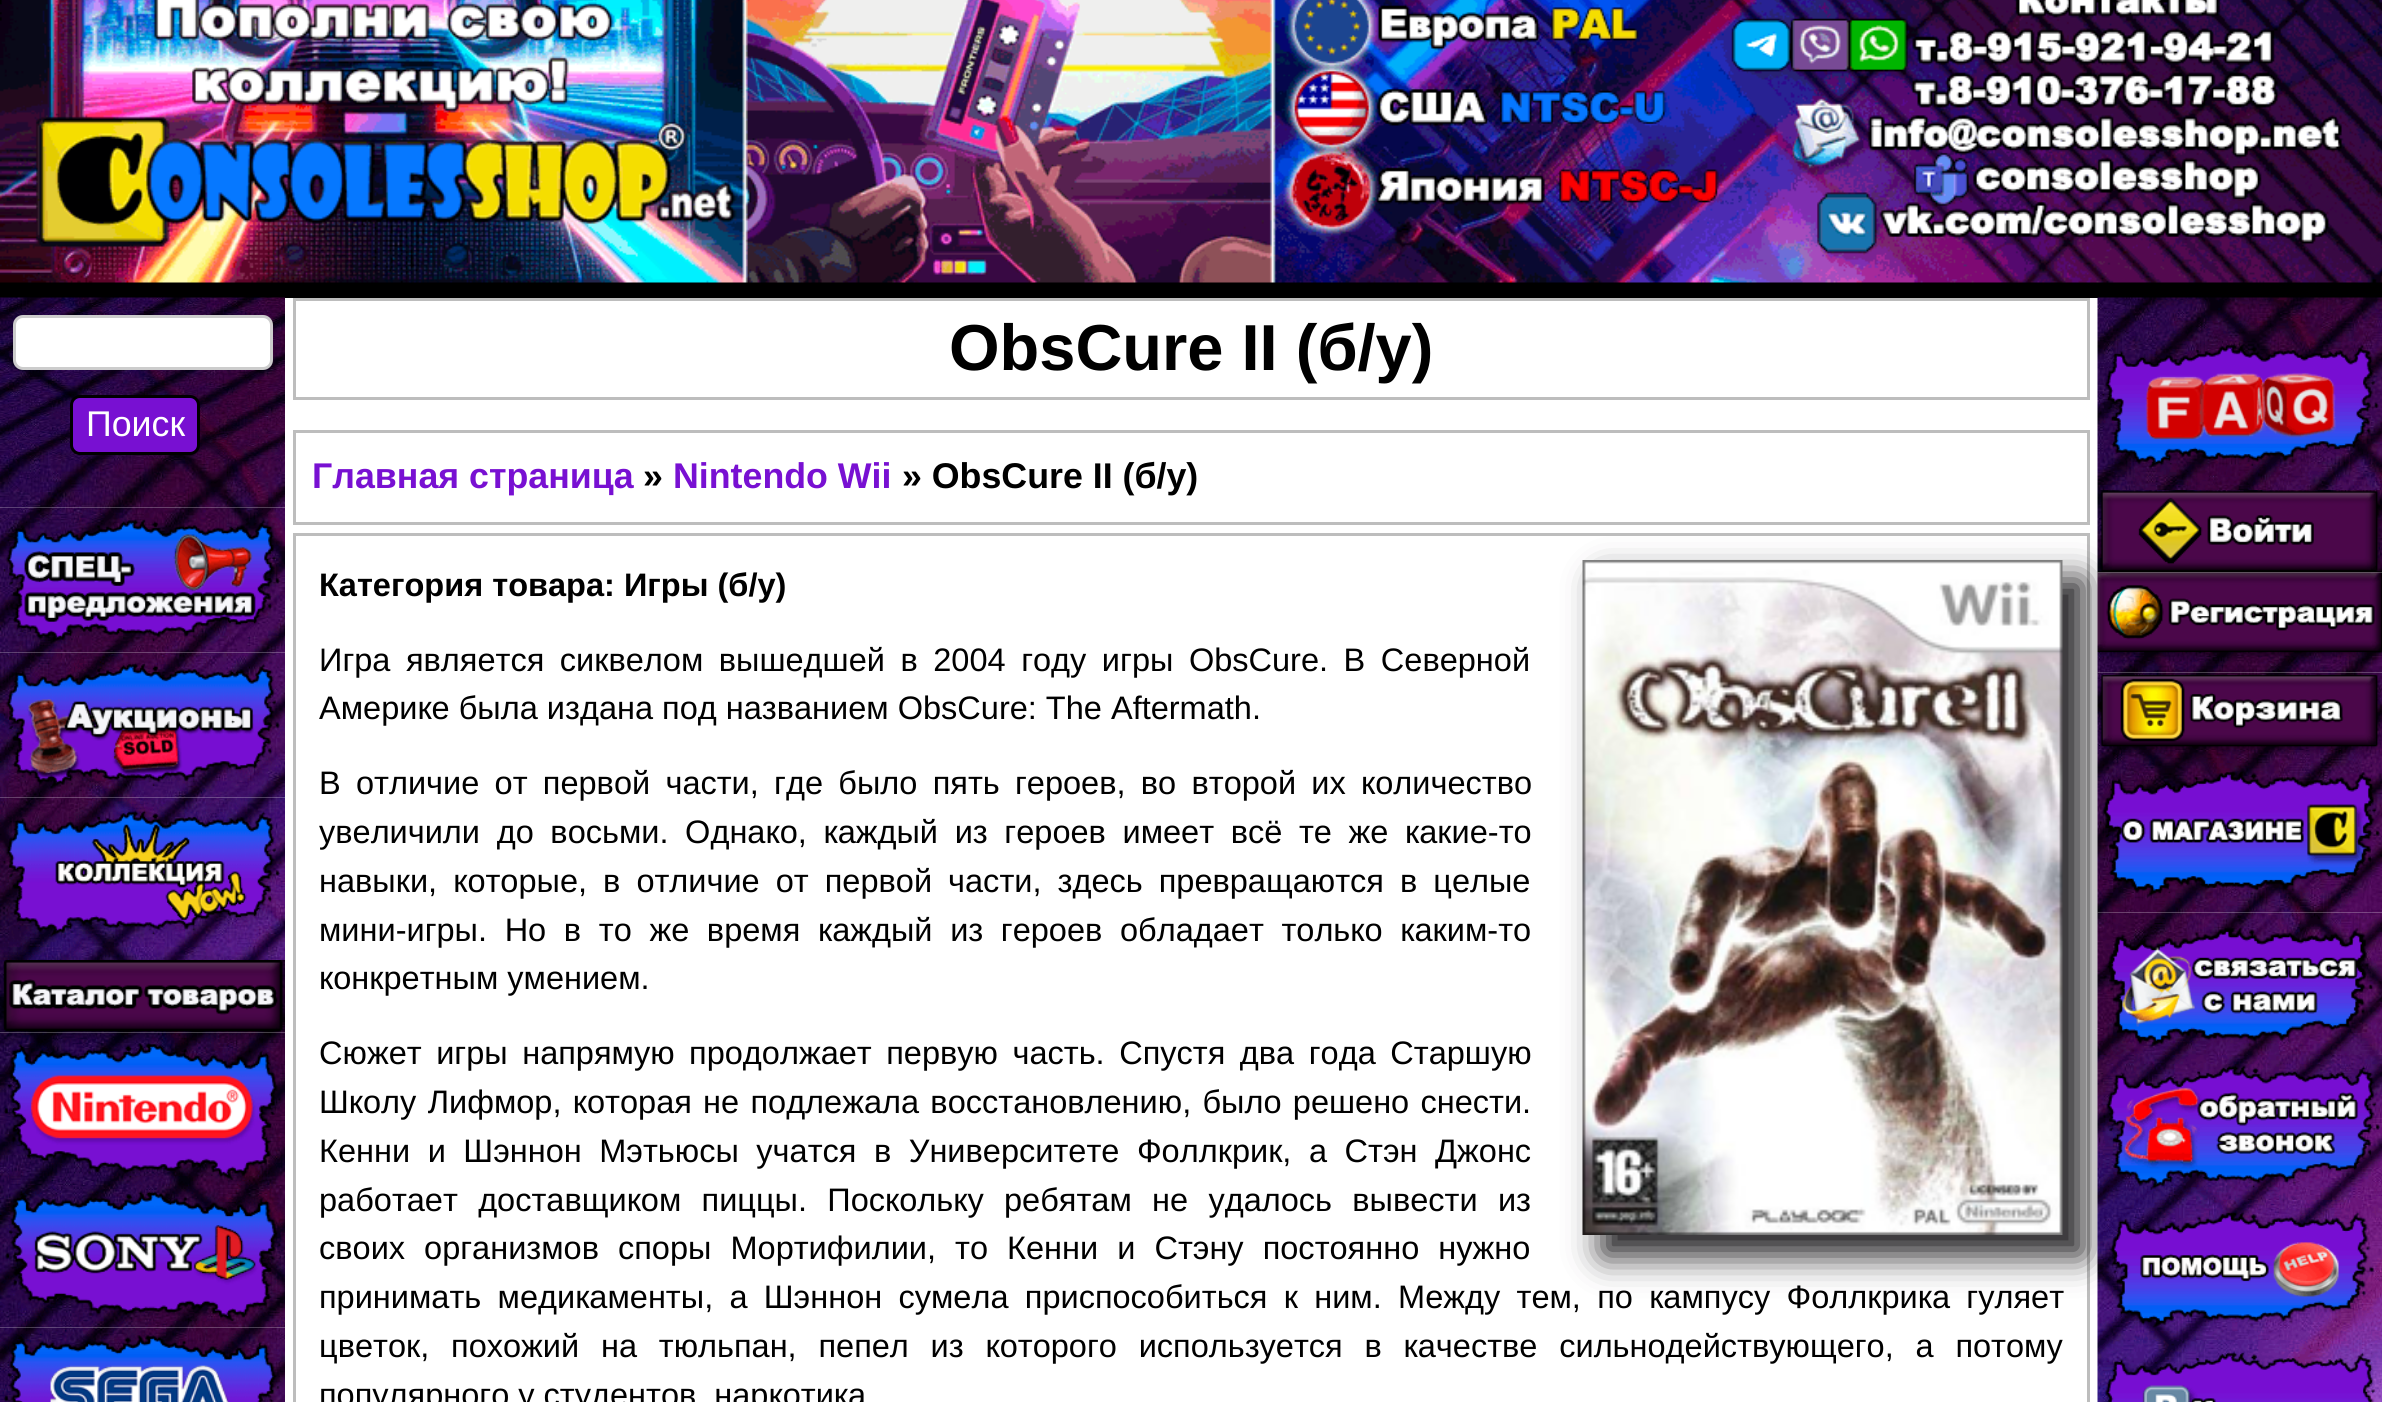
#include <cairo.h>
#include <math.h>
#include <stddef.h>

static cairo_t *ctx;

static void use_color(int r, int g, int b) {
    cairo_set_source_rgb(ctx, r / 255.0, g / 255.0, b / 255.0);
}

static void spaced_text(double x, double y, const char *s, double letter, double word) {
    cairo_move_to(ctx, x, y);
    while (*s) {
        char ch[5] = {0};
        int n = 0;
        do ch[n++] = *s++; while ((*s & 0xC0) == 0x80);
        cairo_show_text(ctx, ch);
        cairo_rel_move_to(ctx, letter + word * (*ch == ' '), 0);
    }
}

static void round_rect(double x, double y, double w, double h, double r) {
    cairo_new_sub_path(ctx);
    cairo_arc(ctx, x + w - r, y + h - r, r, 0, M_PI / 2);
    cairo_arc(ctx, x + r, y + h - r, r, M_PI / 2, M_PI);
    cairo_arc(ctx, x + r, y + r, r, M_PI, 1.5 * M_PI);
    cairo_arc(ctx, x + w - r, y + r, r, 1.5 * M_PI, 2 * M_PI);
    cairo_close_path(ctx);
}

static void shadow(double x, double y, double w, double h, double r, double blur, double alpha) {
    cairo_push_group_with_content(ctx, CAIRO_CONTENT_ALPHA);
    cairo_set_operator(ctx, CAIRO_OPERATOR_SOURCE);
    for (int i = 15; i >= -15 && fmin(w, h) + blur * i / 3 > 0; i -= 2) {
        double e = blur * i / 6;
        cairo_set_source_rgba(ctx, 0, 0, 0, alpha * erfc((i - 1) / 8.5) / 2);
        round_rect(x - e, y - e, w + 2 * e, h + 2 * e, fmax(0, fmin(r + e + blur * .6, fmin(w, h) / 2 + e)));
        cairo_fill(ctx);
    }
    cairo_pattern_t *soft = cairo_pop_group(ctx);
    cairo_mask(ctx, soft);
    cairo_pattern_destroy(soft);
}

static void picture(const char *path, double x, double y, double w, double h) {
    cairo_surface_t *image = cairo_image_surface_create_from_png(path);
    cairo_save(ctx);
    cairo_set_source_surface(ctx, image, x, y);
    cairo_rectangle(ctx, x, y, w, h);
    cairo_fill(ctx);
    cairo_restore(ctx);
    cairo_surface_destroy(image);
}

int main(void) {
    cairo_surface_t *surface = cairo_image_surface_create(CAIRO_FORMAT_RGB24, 2382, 1402);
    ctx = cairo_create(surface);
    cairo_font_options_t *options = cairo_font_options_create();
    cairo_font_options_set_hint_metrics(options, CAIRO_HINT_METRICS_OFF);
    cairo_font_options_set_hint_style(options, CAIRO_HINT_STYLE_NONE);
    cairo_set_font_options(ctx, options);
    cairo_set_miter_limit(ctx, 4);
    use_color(255, 255, 255);
    cairo_paint(ctx);
    use_color(0, 0, 0);
    cairo_rectangle(ctx, 0, 282, 2382, 16);
    cairo_fill(ctx);
    picture("img1.png", 0, 0, 2382, 283);
    picture("img2.png", 0, 297, 285, 163);
    use_color(255, 255, 255);
    round_rect(14.5, 316.5, 257, 52, 8.5);
    cairo_fill_preserve(ctx);
    use_color(204, 204, 204);
    cairo_set_line_width(ctx, 3);
    cairo_stroke(ctx);
    use_color(120, 16, 210);
    round_rect(71.5, 396.5, 127, 57, 8.5);
    cairo_fill_preserve(ctx);
    use_color(0, 0, 0);
    cairo_stroke(ctx);
    cairo_select_font_face(ctx, "Liberation Sans", CAIRO_FONT_SLANT_NORMAL, CAIRO_FONT_WEIGHT_NORMAL);
    cairo_set_font_size(ctx, 35.75);
    use_color(255, 255, 255);
    cairo_move_to(ctx, 86, 436);
    cairo_show_text(ctx, "Поиск");
    picture("img3.png", 0, 460, 285, 48);
    picture("img4.png", 0, 507, 285, 146);
    picture("img5.png", 0, 652, 285, 146);
    picture("img6.png", 0, 797, 285, 163);
    picture("img7.png", 0, 960, 285, 73);
    picture("img8.png", 0, 1032, 285, 153);
    picture("img9.png", 0, 1185, 285, 143);
    picture("img10.png", 0, 1327, 285, 75);
    cairo_rectangle(ctx, 294.5, 299.5, 1794, 99);
    use_color(189, 189, 189);
    cairo_stroke(ctx);
    cairo_select_font_face(ctx, "Liberation Sans", CAIRO_FONT_SLANT_NORMAL, CAIRO_FONT_WEIGHT_BOLD);
    cairo_set_font_size(ctx, 65);
    use_color(0, 0, 0);
    cairo_move_to(ctx, 949, 370);
    cairo_show_text(ctx, "ObsCure II (б/у)");
    cairo_rectangle(ctx, 294.5, 431.5, 1794, 92);
    use_color(189, 189, 189);
    cairo_stroke(ctx);
    cairo_set_font_size(ctx, 35.75);
    use_color(120, 16, 210);
    cairo_move_to(ctx, 312, 488);
    cairo_show_text(ctx, "Главная страница");
    use_color(0, 0, 0);
    cairo_move_to(ctx, 643, 488);
    cairo_show_text(ctx, "»");
    use_color(120, 16, 210);
    cairo_move_to(ctx, 673, 488);
    cairo_show_text(ctx, "Nintendo Wii");
    use_color(0, 0, 0);
    cairo_move_to(ctx, 902, 488);
    cairo_show_text(ctx, "» ObsCure II (б/у)");
    cairo_rectangle(ctx, 294.5, 534.5, 1794, 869);
    use_color(189, 189, 189);
    cairo_stroke(ctx);
    cairo_set_font_size(ctx, 32.52);
    use_color(0, 0, 0);
    cairo_move_to(ctx, 319, 596);
    cairo_show_text(ctx, "Категория товара: Игры (б/у)");
    use_color(27, 25, 28);
    shadow(1603, 580, 480, 675, 0, 17.5, 1);
    picture("img11.png", 1582, 560, 481, 675);
    cairo_select_font_face(ctx, "Liberation Sans", CAIRO_FONT_SLANT_NORMAL, CAIRO_FONT_WEIGHT_NORMAL);
    use_color(0, 0, 0);
    spaced_text(319, 671, "Игра является сиквелом вышедшей в 2004 году игры ObsCure. В Северной", 0, 6.5);
    cairo_move_to(ctx, 319, 719);
    cairo_show_text(ctx, "Америке была издана под названием ObsCure: The Aftermath.");
    spaced_text(319, 794, "В отличие от первой части, где было пять героев, во второй их количество", 0, 6.25);
    spaced_text(319, 843, "увеличили до восьми. Однако, каждый из героев имеет всё те же какие-то", 0, 7.6);
    spaced_text(319, 892, "навыки, которые, в отличие от первой части, здесь превращаются в целые", 0, 7);
    spaced_text(319, 941, "мини-игры. Но в то же время каждый из героев обладает только каким-то", 0, 8.6);
    cairo_move_to(ctx, 319, 989);
    cairo_show_text(ctx, "конкретным умением.");
    spaced_text(319, 1064, "Сюжет игры напрямую продолжает первую часть. Спустя два года Старшую", 0, 5.5);
    spaced_text(319, 1113, "Школу Лифмор, которая не подлежала восстановлению, было решено снести.", 0, 2.25);
    spaced_text(319, 1162, "Кенни и Шэннон Мэтьюсы учатся в Университете Фоллкрик, а Стэн Джонс", 0, 8.5);
    spaced_text(319, 1211, "работает доставщиком пиццы. Поскольку ребятам не удалось вывести из", 0, 11.25);
    spaced_text(319, 1259, "своих организмов споры Мортифилии, то Кенни и Стэну постоянно нужно", 0, 10);
    spaced_text(319, 1308, "принимать медикаменты, а Шэннон сумела приспособиться к ним. Между тем, по кампусу Фоллкрика гуляет", 0, 7.25);
    spaced_text(319, 1357, "цветок, похожий на тюльпан, пепел из которого используется в качестве сильнодействующего, а потому", 0, 12.75);
    cairo_move_to(ctx, 319, 1406);
    cairo_show_text(ctx, "популярного у студентов, наркотика");
    picture("img12.png", 2097, 297, 285, 193);
    picture("img13.png", 2097, 490, 285, 83);
    picture("img14.png", 2097, 572, 285, 101);
    picture("img15.png", 2097, 672, 285, 78);
    picture("img17.png", 2097, 912, 285, 143);
    picture("img16.png", 2097, 750, 285, 163);
    picture("img18.png", 2097, 1055, 285, 145);
    picture("img19.png", 2097, 1200, 285, 140);
    picture("img20.png", 2097, 1340, 285, 62);
    cairo_surface_write_to_png(surface, "result.png");
    cairo_font_options_destroy(options);
    cairo_destroy(ctx);
    cairo_surface_destroy(surface);
    return 0;
}
